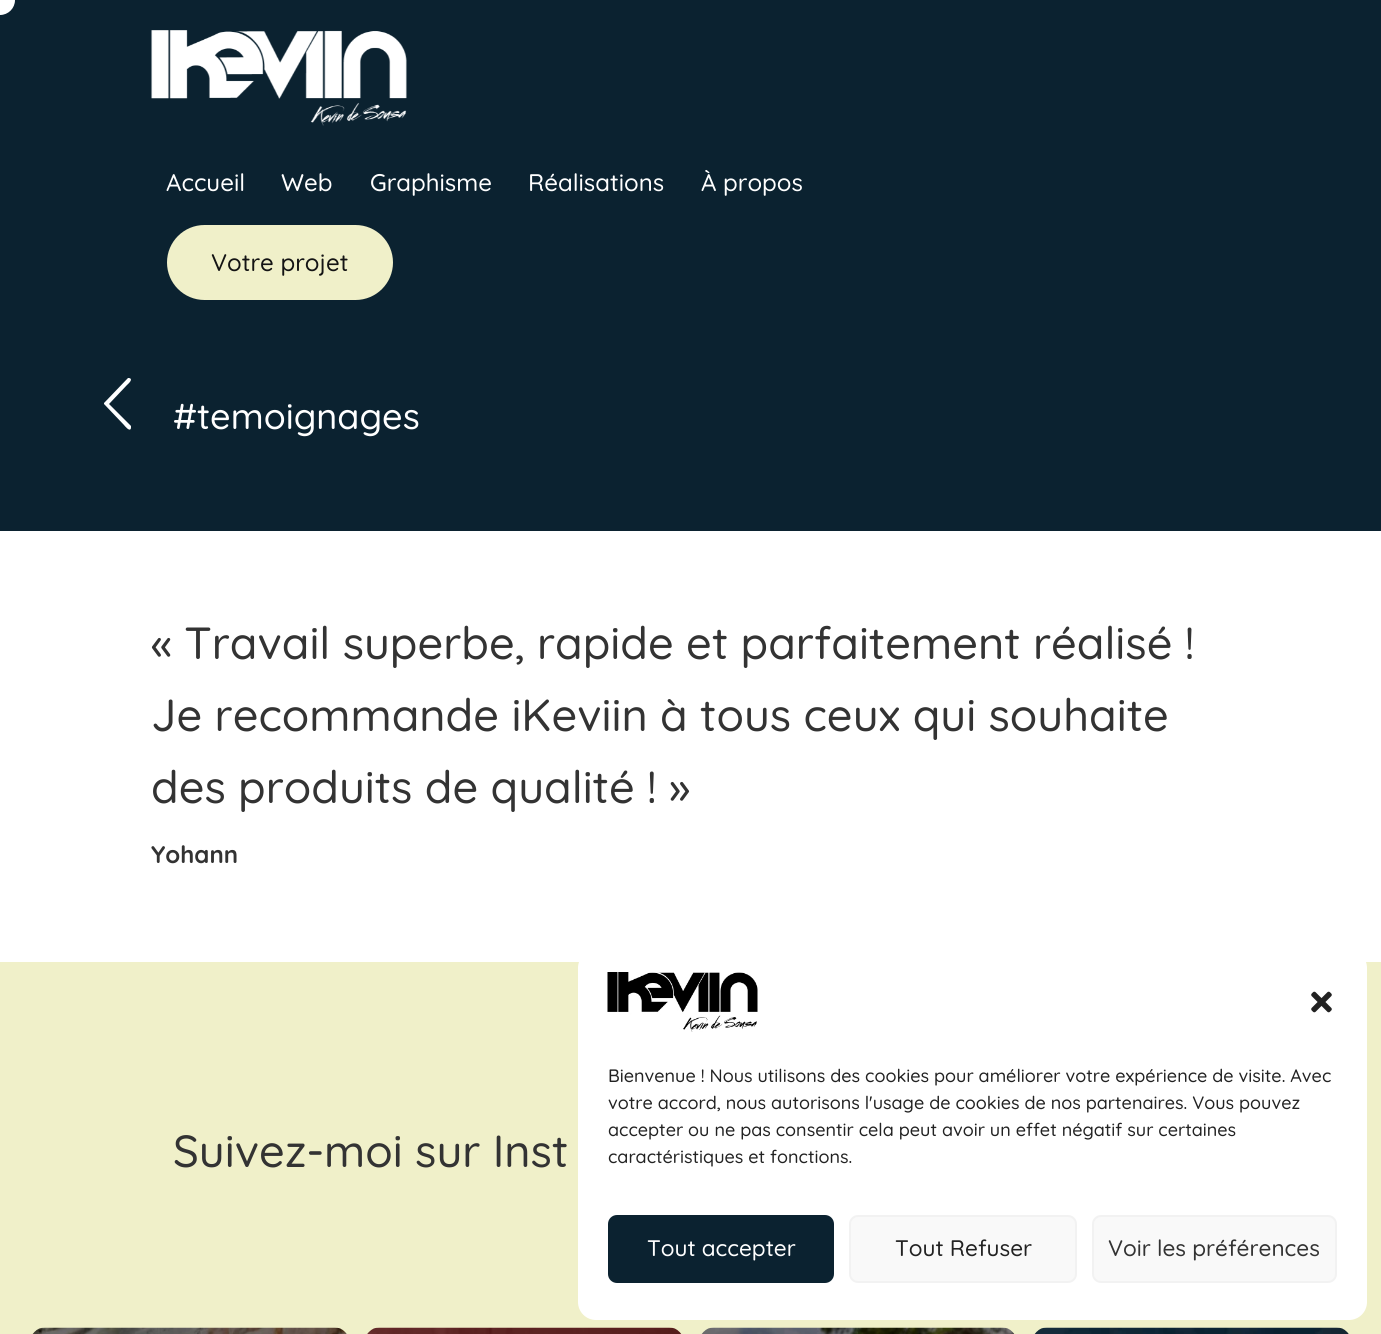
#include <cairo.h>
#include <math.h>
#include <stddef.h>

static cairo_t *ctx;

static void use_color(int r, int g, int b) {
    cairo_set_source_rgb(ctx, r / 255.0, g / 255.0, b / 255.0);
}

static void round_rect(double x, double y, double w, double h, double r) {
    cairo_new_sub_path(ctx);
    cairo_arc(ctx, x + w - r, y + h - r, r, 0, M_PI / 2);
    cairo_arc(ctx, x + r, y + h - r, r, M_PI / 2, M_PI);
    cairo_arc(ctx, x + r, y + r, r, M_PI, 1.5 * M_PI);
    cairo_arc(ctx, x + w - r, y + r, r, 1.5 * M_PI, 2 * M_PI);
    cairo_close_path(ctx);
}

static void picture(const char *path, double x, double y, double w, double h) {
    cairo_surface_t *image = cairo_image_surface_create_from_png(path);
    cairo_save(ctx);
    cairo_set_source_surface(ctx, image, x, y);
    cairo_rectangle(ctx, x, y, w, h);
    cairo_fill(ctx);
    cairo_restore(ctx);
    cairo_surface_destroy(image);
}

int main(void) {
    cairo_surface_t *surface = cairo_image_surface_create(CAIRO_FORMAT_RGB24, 1381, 1334);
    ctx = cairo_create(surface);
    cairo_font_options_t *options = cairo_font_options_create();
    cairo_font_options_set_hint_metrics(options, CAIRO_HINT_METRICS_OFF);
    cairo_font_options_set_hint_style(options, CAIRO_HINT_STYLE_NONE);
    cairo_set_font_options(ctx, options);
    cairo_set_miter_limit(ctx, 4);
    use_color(255, 255, 255);
    cairo_paint(ctx);
    use_color(11, 34, 48);
    cairo_rectangle(ctx, 0, 0, 1381, 531);
    cairo_fill(ctx);
    use_color(255, 255, 255);
    cairo_arc(ctx, 0, 0, 15, 0, 2 * M_PI);
    cairo_fill(ctx);
    picture("img1.png", 151, 30, 256, 96);
    cairo_select_font_face(ctx, "Quicksand Medium", CAIRO_FONT_SLANT_NORMAL, CAIRO_FONT_WEIGHT_NORMAL);
    cairo_set_font_size(ctx, 24);
    cairo_move_to(ctx, 166, 191);
    cairo_show_text(ctx, "Accueil");
    cairo_move_to(ctx, 281, 191);
    cairo_show_text(ctx, "Web");
    cairo_move_to(ctx, 370, 191);
    cairo_show_text(ctx, "Graphisme");
    cairo_move_to(ctx, 528, 191);
    cairo_show_text(ctx, "Réalisations");
    cairo_move_to(ctx, 701, 191);
    cairo_show_text(ctx, "À propos");
    use_color(240, 240, 201);
    round_rect(167, 225, 226, 75, 37.5);
    cairo_fill(ctx);
    use_color(20, 20, 20);
    cairo_move_to(ctx, 211, 271);
    cairo_show_text(ctx, "Votre projet");
    use_color(255, 255, 255);
    cairo_new_path(ctx);
    cairo_move_to(ctx, 131, 426);
    cairo_line_to(ctx, 131, 428);
    cairo_curve_to(ctx, 130, 433, 124, 425, 124, 425);
    cairo_line_to(ctx, 104, 404);
    cairo_line_to(ctx, 104, 403);
    cairo_line_to(ctx, 128, 378);
    cairo_line_to(ctx, 129, 378);
    cairo_curve_to(ctx, 134, 379, 128, 384, 127, 385);
    cairo_line_to(ctx, 109, 404);
    cairo_close_path(ctx);
    cairo_fill(ctx);
    cairo_set_font_size(ctx, 36);
    cairo_move_to(ctx, 173, 429);
    cairo_show_text(ctx, "#temoignages");
    cairo_set_font_size(ctx, 45);
    use_color(51, 51, 51);
    cairo_move_to(ctx, 151, 659);
    cairo_show_text(ctx, "« Travail superbe, rapide et parfaitement réalisé !");
    cairo_move_to(ctx, 151, 731);
    cairo_show_text(ctx, "Je recommande iKeviin à tous ceux qui souhaite");
    cairo_move_to(ctx, 151, 803);
    cairo_show_text(ctx, "des produits de qualité ! »");
    cairo_select_font_face(ctx, "Quicksand", CAIRO_FONT_SLANT_NORMAL, CAIRO_FONT_WEIGHT_BOLD);
    cairo_set_font_size(ctx, 24);
    cairo_move_to(ctx, 151, 863);
    cairo_show_text(ctx, "Yohann");
    use_color(240, 240, 201);
    cairo_rectangle(ctx, 0, 962, 1381, 372);
    cairo_fill(ctx);
    cairo_select_font_face(ctx, "Quicksand Medium", CAIRO_FONT_SLANT_NORMAL, CAIRO_FONT_WEIGHT_NORMAL);
    cairo_set_font_size(ctx, 45);
    use_color(51, 51, 51);
    cairo_move_to(ctx, 173, 1167);
    cairo_show_text(ctx, "Suivez-moi sur Inst");
    picture("img2.png", 32, 1327, 315, 7);
    picture("img3.png", 367, 1327, 315, 7);
    picture("img4.png", 701, 1327, 314, 7);
    picture("img5.png", 1034, 1327, 315, 7);
    use_color(255, 255, 255);
    round_rect(578, 950, 789, 370, 18);
    cairo_fill(ctx);
    picture("img6.png", 607, 972, 151, 60);
    picture("img7.png", 1311, 991, 21, 22);
    cairo_set_font_size(ctx, 18);
    use_color(34, 34, 34);
    cairo_move_to(ctx, 608, 1082);
    cairo_show_text(ctx, "Bienvenue ! Nous utilisons des cookies pour améliorer votre expérience de visite. Avec");
    cairo_move_to(ctx, 608, 1109);
    cairo_show_text(ctx, "votre accord, nous autorisons l'usage de cookies de nos partenaires. Vous pouvez");
    cairo_move_to(ctx, 608, 1136);
    cairo_show_text(ctx, "accepter ou ne pas consentir cela peut avoir un effet négatif sur certaines");
    cairo_move_to(ctx, 608, 1163);
    cairo_show_text(ctx, "caractéristiques et fonctions.");
    use_color(11, 34, 48);
    round_rect(609, 1216, 224, 66, 8);
    cairo_fill_preserve(ctx);
    cairo_stroke(ctx);
    cairo_set_font_size(ctx, 22.5);
    use_color(255, 255, 255);
    cairo_move_to(ctx, 647, 1256);
    cairo_show_text(ctx, "Tout accepter");
    use_color(249, 249, 249);
    round_rect(850, 1216, 226, 66, 8);
    cairo_fill_preserve(ctx);
    use_color(242, 242, 242);
    cairo_stroke(ctx);
    use_color(34, 34, 34);
    cairo_move_to(ctx, 895, 1256);
    cairo_show_text(ctx, "Tout Refuser");
    use_color(249, 249, 249);
    round_rect(1093, 1216, 243, 66, 8);
    cairo_fill_preserve(ctx);
    use_color(242, 242, 242);
    cairo_stroke(ctx);
    use_color(51, 51, 51);
    cairo_move_to(ctx, 1108, 1256);
    cairo_show_text(ctx, "Voir les préférences");
    cairo_surface_write_to_png(surface, "result.png");
    cairo_font_options_destroy(options);
    cairo_destroy(ctx);
    cairo_surface_destroy(surface);
    return 0;
}
